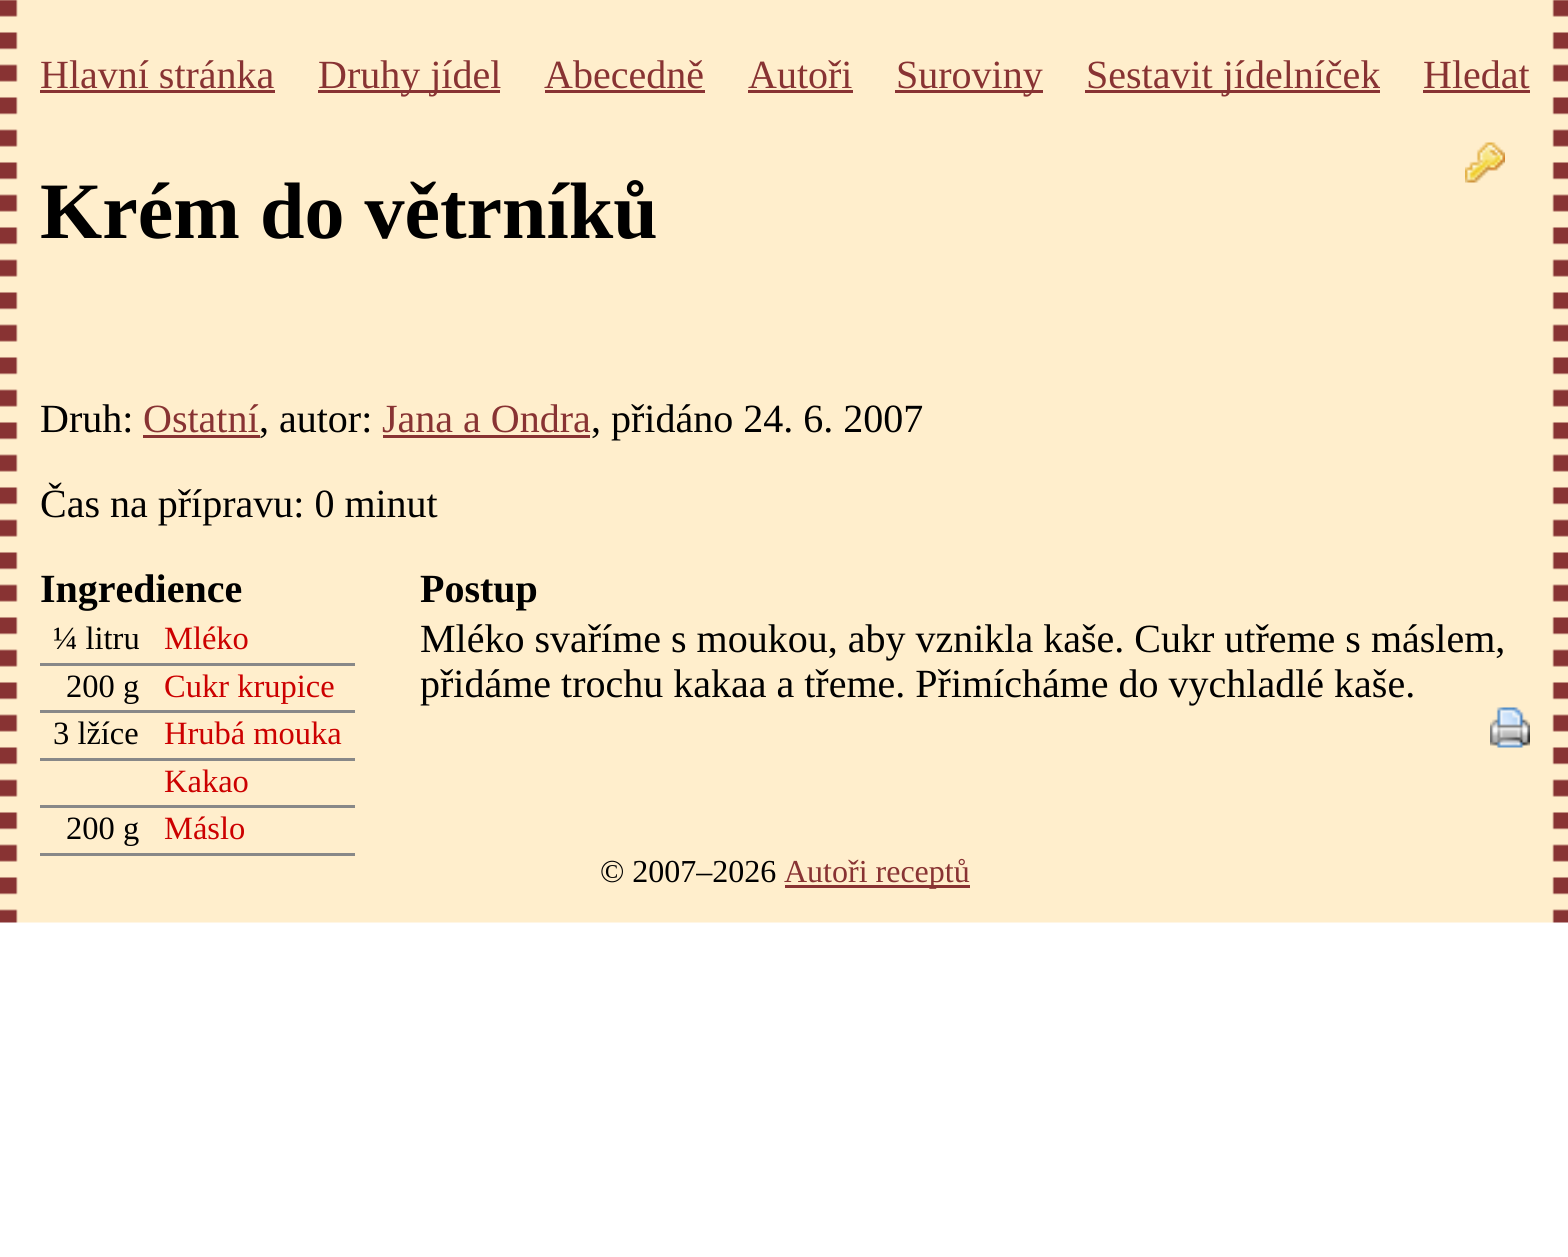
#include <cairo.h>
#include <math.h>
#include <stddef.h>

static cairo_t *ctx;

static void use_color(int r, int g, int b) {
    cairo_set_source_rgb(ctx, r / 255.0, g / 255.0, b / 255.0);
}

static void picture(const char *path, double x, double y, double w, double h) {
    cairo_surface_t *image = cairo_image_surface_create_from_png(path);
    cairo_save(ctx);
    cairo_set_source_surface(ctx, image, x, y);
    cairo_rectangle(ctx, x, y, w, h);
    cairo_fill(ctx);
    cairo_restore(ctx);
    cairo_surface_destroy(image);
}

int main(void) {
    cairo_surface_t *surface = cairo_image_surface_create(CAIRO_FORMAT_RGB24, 1568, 1257);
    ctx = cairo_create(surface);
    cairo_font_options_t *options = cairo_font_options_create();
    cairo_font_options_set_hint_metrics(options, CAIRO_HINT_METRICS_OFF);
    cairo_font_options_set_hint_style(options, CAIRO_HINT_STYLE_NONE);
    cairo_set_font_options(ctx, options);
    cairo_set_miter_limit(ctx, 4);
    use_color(255, 255, 255);
    cairo_paint(ctx);
    picture("img1.png", 0, 0, 1568, 923);
    cairo_select_font_face(ctx, "Liberation Serif", CAIRO_FONT_SLANT_NORMAL, CAIRO_FONT_WEIGHT_NORMAL);
    cairo_set_font_size(ctx, 40);
    use_color(136, 51, 51);
    cairo_move_to(ctx, 40, 88);
    cairo_show_text(ctx, "Hlavní stránka");
    cairo_rectangle(ctx, 40, 90, 235, 3);
    cairo_fill(ctx);
    cairo_rectangle(ctx, 318, 90, 182, 3);
    cairo_fill(ctx);
    cairo_move_to(ctx, 318, 88);
    cairo_show_text(ctx, "Druhy jídel");
    cairo_move_to(ctx, 544, 88);
    cairo_show_text(ctx, "Abecedně");
    cairo_rectangle(ctx, 545, 90, 160, 3);
    cairo_fill(ctx);
    cairo_move_to(ctx, 748, 88);
    cairo_show_text(ctx, "Autoři");
    cairo_rectangle(ctx, 748, 90, 105, 3);
    cairo_fill(ctx);
    cairo_rectangle(ctx, 895, 90, 148, 3);
    cairo_fill(ctx);
    cairo_move_to(ctx, 896, 88);
    cairo_show_text(ctx, "Suroviny");
    cairo_rectangle(ctx, 1085, 90, 295, 3);
    cairo_fill(ctx);
    cairo_move_to(ctx, 1086, 88);
    cairo_show_text(ctx, "Sestavit jídelníček");
    cairo_move_to(ctx, 1423, 88);
    cairo_show_text(ctx, "Hledat");
    cairo_rectangle(ctx, 1423, 90, 107, 3);
    cairo_fill(ctx);
    picture("img2.png", 1465, 142, 40, 41);
    cairo_select_font_face(ctx, "Liberation Serif", CAIRO_FONT_SLANT_NORMAL, CAIRO_FONT_WEIGHT_BOLD);
    cairo_set_font_size(ctx, 80);
    use_color(0, 0, 0);
    cairo_move_to(ctx, 40, 238);
    cairo_show_text(ctx, "Krém do větrníků");
    cairo_select_font_face(ctx, "Liberation Serif", CAIRO_FONT_SLANT_NORMAL, CAIRO_FONT_WEIGHT_NORMAL);
    cairo_set_font_size(ctx, 40);
    cairo_move_to(ctx, 40, 432);
    cairo_show_text(ctx, "Druh:");
    use_color(136, 51, 51);
    cairo_move_to(ctx, 143, 432);
    cairo_show_text(ctx, "Ostatní");
    cairo_rectangle(ctx, 143, 435, 117, 3);
    cairo_fill(ctx);
    use_color(0, 0, 0);
    cairo_move_to(ctx, 259, 432);
    cairo_show_text(ctx, ", autor:");
    use_color(136, 51, 51);
    cairo_move_to(ctx, 382, 432);
    cairo_show_text(ctx, "Jana a Ondra");
    cairo_rectangle(ctx, 383, 435, 207, 3);
    cairo_fill(ctx);
    use_color(0, 0, 0);
    cairo_move_to(ctx, 591, 432);
    cairo_show_text(ctx, ", přidáno 24. 6. 2007");
    cairo_move_to(ctx, 40, 517);
    cairo_show_text(ctx, "Čas na přípravu: 0 minut");
    cairo_select_font_face(ctx, "Liberation Serif", CAIRO_FONT_SLANT_NORMAL, CAIRO_FONT_WEIGHT_BOLD);
    cairo_move_to(ctx, 40, 602);
    cairo_show_text(ctx, "Ingredience");
    cairo_select_font_face(ctx, "Liberation Serif", CAIRO_FONT_SLANT_NORMAL, CAIRO_FONT_WEIGHT_NORMAL);
    cairo_set_font_size(ctx, 32.5);
    cairo_move_to(ctx, 53, 649);
    cairo_show_text(ctx, "¼ litru");
    use_color(136, 136, 136);
    cairo_rectangle(ctx, 40, 663, 315, 3);
    cairo_fill(ctx);
    use_color(204, 0, 0);
    cairo_move_to(ctx, 164, 649);
    cairo_show_text(ctx, "Mléko");
    use_color(0, 0, 0);
    cairo_move_to(ctx, 66, 697);
    cairo_show_text(ctx, "200 g");
    use_color(136, 136, 136);
    cairo_rectangle(ctx, 40, 710, 315, 3);
    cairo_fill(ctx);
    use_color(204, 0, 0);
    cairo_move_to(ctx, 164, 697);
    cairo_show_text(ctx, "Cukr krupice");
    use_color(0, 0, 0);
    cairo_move_to(ctx, 53, 744);
    cairo_show_text(ctx, "3 lžíce");
    use_color(136, 136, 136);
    cairo_rectangle(ctx, 40, 758, 315, 3);
    cairo_fill(ctx);
    use_color(204, 0, 0);
    cairo_move_to(ctx, 164, 744);
    cairo_show_text(ctx, "Hrubá mouka");
    use_color(136, 136, 136);
    cairo_rectangle(ctx, 40, 805, 315, 3);
    cairo_fill(ctx);
    use_color(204, 0, 0);
    cairo_move_to(ctx, 164, 792);
    cairo_show_text(ctx, "Kakao");
    use_color(0, 0, 0);
    cairo_move_to(ctx, 66, 839);
    cairo_show_text(ctx, "200 g");
    use_color(136, 136, 136);
    cairo_rectangle(ctx, 40, 853, 315, 3);
    cairo_fill(ctx);
    use_color(204, 0, 0);
    cairo_move_to(ctx, 164, 839);
    cairo_show_text(ctx, "Máslo");
    cairo_select_font_face(ctx, "Liberation Serif", CAIRO_FONT_SLANT_NORMAL, CAIRO_FONT_WEIGHT_BOLD);
    cairo_set_font_size(ctx, 40);
    use_color(0, 0, 0);
    cairo_move_to(ctx, 420, 602);
    cairo_show_text(ctx, "Postup");
    cairo_select_font_face(ctx, "Liberation Serif", CAIRO_FONT_SLANT_NORMAL, CAIRO_FONT_WEIGHT_NORMAL);
    cairo_move_to(ctx, 420, 652);
    cairo_show_text(ctx, "Mléko svaříme s moukou, aby vznikla kaše. Cukr utřeme s máslem,");
    cairo_move_to(ctx, 420, 697);
    cairo_show_text(ctx, "přidáme trochu kakaa a třeme. Přimícháme do vychladlé kaše.");
    picture("img3.png", 1490, 707, 40, 41);
    cairo_set_font_size(ctx, 32);
    cairo_move_to(ctx, 600, 882);
    cairo_show_text(ctx, "© 2007–2026");
    use_color(136, 51, 51);
    cairo_rectangle(ctx, 785, 885, 185, 3);
    cairo_fill(ctx);
    cairo_move_to(ctx, 784, 882);
    cairo_show_text(ctx, "Autoři receptů");
    cairo_surface_write_to_png(surface, "result.png");
    cairo_font_options_destroy(options);
    cairo_destroy(ctx);
    cairo_surface_destroy(surface);
    return 0;
}
